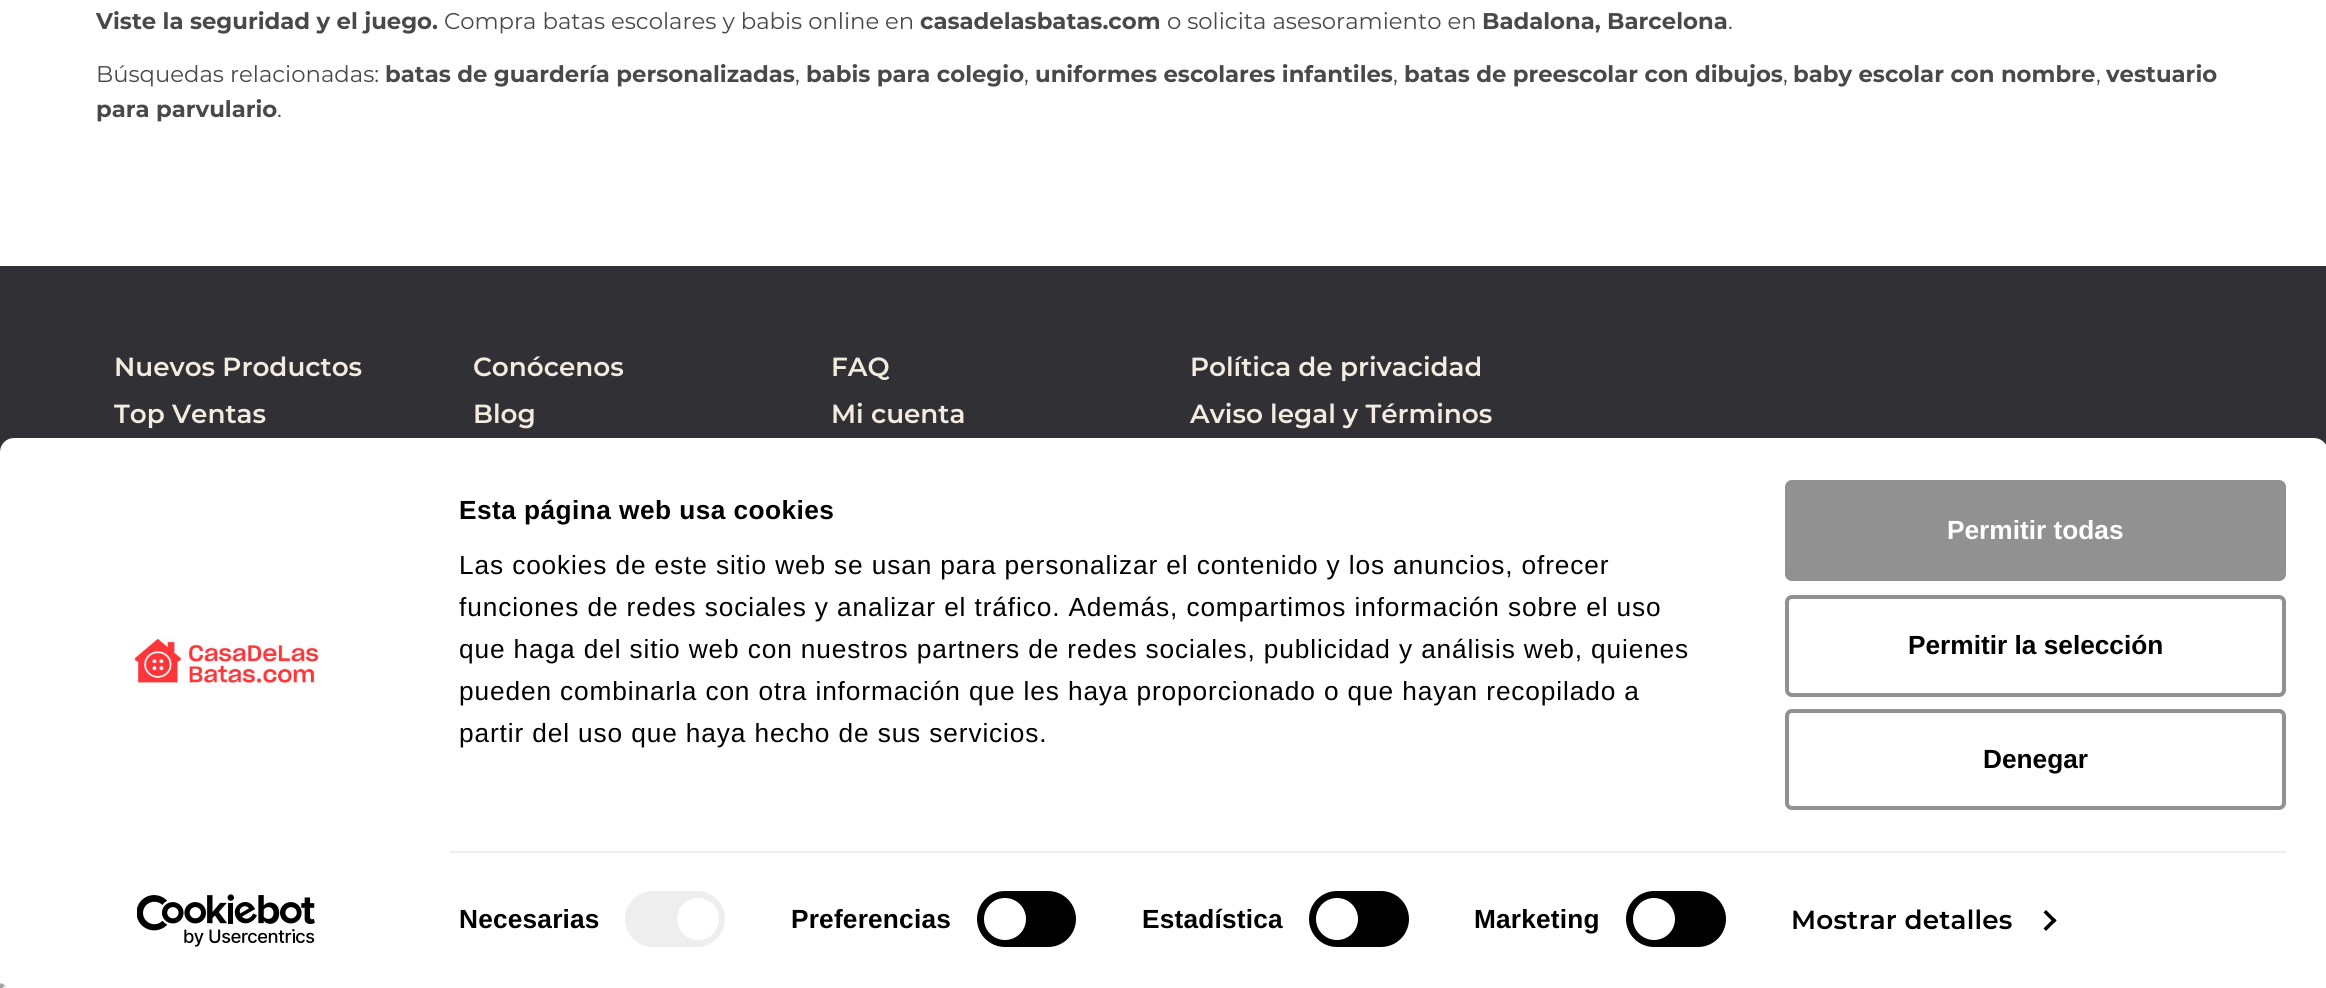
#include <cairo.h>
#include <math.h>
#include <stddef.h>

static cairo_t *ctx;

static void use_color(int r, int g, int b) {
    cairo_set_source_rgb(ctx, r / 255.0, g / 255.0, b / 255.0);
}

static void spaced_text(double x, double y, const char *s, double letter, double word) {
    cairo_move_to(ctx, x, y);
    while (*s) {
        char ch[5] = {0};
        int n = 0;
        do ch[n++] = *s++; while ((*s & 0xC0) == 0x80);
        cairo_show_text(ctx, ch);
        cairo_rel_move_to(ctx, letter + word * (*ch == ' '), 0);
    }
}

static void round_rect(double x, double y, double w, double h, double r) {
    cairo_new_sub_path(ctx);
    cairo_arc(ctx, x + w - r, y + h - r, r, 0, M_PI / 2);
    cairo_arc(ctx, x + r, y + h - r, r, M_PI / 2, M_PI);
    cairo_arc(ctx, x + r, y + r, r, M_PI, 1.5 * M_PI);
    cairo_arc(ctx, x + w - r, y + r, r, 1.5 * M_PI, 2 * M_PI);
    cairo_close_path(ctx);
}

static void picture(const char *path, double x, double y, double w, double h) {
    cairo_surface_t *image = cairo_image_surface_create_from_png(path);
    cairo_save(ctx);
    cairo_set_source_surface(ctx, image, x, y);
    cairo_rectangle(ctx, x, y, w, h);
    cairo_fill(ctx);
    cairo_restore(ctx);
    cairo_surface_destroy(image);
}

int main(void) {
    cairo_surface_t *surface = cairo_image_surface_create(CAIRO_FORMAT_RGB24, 2326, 988);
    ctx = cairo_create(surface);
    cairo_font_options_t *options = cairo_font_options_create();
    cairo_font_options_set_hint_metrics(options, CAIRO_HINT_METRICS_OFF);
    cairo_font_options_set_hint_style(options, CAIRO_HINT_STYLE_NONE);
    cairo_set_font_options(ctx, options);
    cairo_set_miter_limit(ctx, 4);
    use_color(255, 255, 255);
    cairo_paint(ctx);
    cairo_select_font_face(ctx, "Montserrat", CAIRO_FONT_SLANT_NORMAL, CAIRO_FONT_WEIGHT_BOLD);
    cairo_set_font_size(ctx, 22.75);
    use_color(73, 73, 73);
    cairo_move_to(ctx, 96, 29);
    cairo_show_text(ctx, "Viste la seguridad y el juego.");
    cairo_select_font_face(ctx, "Montserrat", CAIRO_FONT_SLANT_NORMAL, CAIRO_FONT_WEIGHT_NORMAL);
    cairo_move_to(ctx, 444, 29);
    cairo_show_text(ctx, "Compra batas escolares y babis online en");
    cairo_select_font_face(ctx, "Montserrat", CAIRO_FONT_SLANT_NORMAL, CAIRO_FONT_WEIGHT_BOLD);
    cairo_move_to(ctx, 920, 29);
    cairo_show_text(ctx, "casadelasbatas.com");
    cairo_select_font_face(ctx, "Montserrat", CAIRO_FONT_SLANT_NORMAL, CAIRO_FONT_WEIGHT_NORMAL);
    cairo_move_to(ctx, 1167, 29);
    cairo_show_text(ctx, "o solicita asesoramiento en");
    cairo_select_font_face(ctx, "Montserrat", CAIRO_FONT_SLANT_NORMAL, CAIRO_FONT_WEIGHT_BOLD);
    cairo_move_to(ctx, 1482, 29);
    cairo_show_text(ctx, "Badalona, Barcelona");
    cairo_select_font_face(ctx, "Montserrat", CAIRO_FONT_SLANT_NORMAL, CAIRO_FONT_WEIGHT_NORMAL);
    cairo_move_to(ctx, 1728, 29);
    cairo_show_text(ctx, ".");
    cairo_move_to(ctx, 96, 82);
    cairo_show_text(ctx, "Búsquedas relacionadas:");
    cairo_select_font_face(ctx, "Montserrat", CAIRO_FONT_SLANT_NORMAL, CAIRO_FONT_WEIGHT_BOLD);
    cairo_move_to(ctx, 385, 82);
    cairo_show_text(ctx, "batas de guardería personalizadas");
    cairo_select_font_face(ctx, "Montserrat", CAIRO_FONT_SLANT_NORMAL, CAIRO_FONT_WEIGHT_NORMAL);
    cairo_move_to(ctx, 795, 82);
    cairo_show_text(ctx, ",");
    cairo_select_font_face(ctx, "Montserrat", CAIRO_FONT_SLANT_NORMAL, CAIRO_FONT_WEIGHT_BOLD);
    cairo_move_to(ctx, 806, 82);
    cairo_show_text(ctx, "babis para colegio");
    cairo_select_font_face(ctx, "Montserrat", CAIRO_FONT_SLANT_NORMAL, CAIRO_FONT_WEIGHT_NORMAL);
    cairo_move_to(ctx, 1024, 82);
    cairo_show_text(ctx, ",");
    cairo_select_font_face(ctx, "Montserrat", CAIRO_FONT_SLANT_NORMAL, CAIRO_FONT_WEIGHT_BOLD);
    cairo_move_to(ctx, 1035, 82);
    cairo_show_text(ctx, "uniformes escolares infantiles");
    cairo_select_font_face(ctx, "Montserrat", CAIRO_FONT_SLANT_NORMAL, CAIRO_FONT_WEIGHT_NORMAL);
    cairo_move_to(ctx, 1393, 82);
    cairo_show_text(ctx, ",");
    cairo_select_font_face(ctx, "Montserrat", CAIRO_FONT_SLANT_NORMAL, CAIRO_FONT_WEIGHT_BOLD);
    cairo_move_to(ctx, 1404, 82);
    cairo_show_text(ctx, "batas de preescolar con dibujos");
    cairo_select_font_face(ctx, "Montserrat", CAIRO_FONT_SLANT_NORMAL, CAIRO_FONT_WEIGHT_NORMAL);
    cairo_move_to(ctx, 1783, 82);
    cairo_show_text(ctx, ",");
    cairo_select_font_face(ctx, "Montserrat", CAIRO_FONT_SLANT_NORMAL, CAIRO_FONT_WEIGHT_BOLD);
    cairo_move_to(ctx, 1793, 82);
    cairo_show_text(ctx, "baby escolar con nombre");
    cairo_select_font_face(ctx, "Montserrat", CAIRO_FONT_SLANT_NORMAL, CAIRO_FONT_WEIGHT_NORMAL);
    cairo_move_to(ctx, 2096, 82);
    cairo_show_text(ctx, ",");
    cairo_select_font_face(ctx, "Montserrat", CAIRO_FONT_SLANT_NORMAL, CAIRO_FONT_WEIGHT_BOLD);
    cairo_move_to(ctx, 2106, 82);
    cairo_show_text(ctx, "vestuario");
    cairo_move_to(ctx, 96, 117);
    cairo_show_text(ctx, "para parvulario");
    cairo_select_font_face(ctx, "Montserrat", CAIRO_FONT_SLANT_NORMAL, CAIRO_FONT_WEIGHT_NORMAL);
    cairo_move_to(ctx, 277, 117);
    cairo_show_text(ctx, ".");
    use_color(49, 48, 52);
    cairo_rectangle(ctx, 0, 266, 2326, 186);
    cairo_fill(ctx);
    cairo_select_font_face(ctx, "Montserrat SemiBold", CAIRO_FONT_SLANT_NORMAL, CAIRO_FONT_WEIGHT_NORMAL);
    cairo_set_font_size(ctx, 26.25);
    use_color(243, 235, 223);
    cairo_move_to(ctx, 114, 376);
    cairo_show_text(ctx, "Nuevos Productos");
    cairo_move_to(ctx, 114, 423);
    cairo_show_text(ctx, "Top Ventas");
    cairo_move_to(ctx, 473, 376);
    cairo_show_text(ctx, "Conócenos");
    cairo_move_to(ctx, 473, 423);
    cairo_show_text(ctx, "Blog");
    cairo_move_to(ctx, 831, 376);
    cairo_show_text(ctx, "FAQ");
    cairo_move_to(ctx, 831, 423);
    cairo_show_text(ctx, "Mi cuenta");
    cairo_move_to(ctx, 1190, 376);
    cairo_show_text(ctx, "Política de privacidad");
    cairo_move_to(ctx, 1190, 423);
    cairo_show_text(ctx, "Aviso legal y Términos");
    use_color(159, 159, 159);
    cairo_new_path(ctx);
    cairo_move_to(ctx, 0, 983.5);
    cairo_line_to(ctx, 7, 983.5);
    cairo_line_to(ctx, 3.5, 987);
    cairo_close_path(ctx);
    cairo_fill(ctx);
    use_color(238, 238, 238);
    cairo_new_path(ctx);
    cairo_move_to(ctx, 7, 983.5);
    cairo_line_to(ctx, 7, 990.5);
    cairo_line_to(ctx, 3.5, 987);
    cairo_close_path(ctx);
    cairo_fill(ctx);
    cairo_new_path(ctx);
    cairo_move_to(ctx, 7, 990.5);
    cairo_line_to(ctx, 0, 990.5);
    cairo_line_to(ctx, 3.5, 987);
    cairo_close_path(ctx);
    cairo_fill(ctx);
    use_color(159, 159, 159);
    cairo_new_path(ctx);
    cairo_move_to(ctx, 0, 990.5);
    cairo_line_to(ctx, 0, 983.5);
    cairo_line_to(ctx, 3.5, 987);
    cairo_close_path(ctx);
    cairo_fill(ctx);
    use_color(255, 255, 255);
    round_rect(0, 438, 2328, 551, 14);
    cairo_fill(ctx);
    picture("img1.png", 134, 638, 185, 45);
    picture("img2.png", 137, 894, 178, 53);
    cairo_select_font_face(ctx, "Liberation Sans", CAIRO_FONT_SLANT_NORMAL, CAIRO_FONT_WEIGHT_BOLD);
    use_color(0, 0, 0);
    spaced_text(459, 519, "Esta página web usa cookies", 0.45, 0);
    cairo_select_font_face(ctx, "Liberation Sans", CAIRO_FONT_SLANT_NORMAL, CAIRO_FONT_WEIGHT_NORMAL);
    spaced_text(459, 574, "Las cookies de este sitio web se usan para personalizar el contenido y los anuncios, ofrecer", 0.88, 0);
    spaced_text(459, 616, "funciones de redes sociales y analizar el tráfico. Además, compartimos información sobre el uso", 0.88, 0);
    spaced_text(459, 658, "que haga del sitio web con nuestros partners de redes sociales, publicidad y análisis web, quienes", 0.88, 0);
    spaced_text(459, 700, "pueden combinarla con otra información que les haya proporcionado o que hayan recopilado a", 0.88, 0);
    spaced_text(459, 742, "partir del uso que haya hecho de sus servicios.", 0.88, 0);
    use_color(238, 238, 238);
    cairo_rectangle(ctx, 450, 851, 1836, 2);
    cairo_fill(ctx);
    cairo_select_font_face(ctx, "Liberation Sans", CAIRO_FONT_SLANT_NORMAL, CAIRO_FONT_WEIGHT_BOLD);
    use_color(0, 0, 0);
    spaced_text(459, 928, "Necesarias", 0.2, 0);
    use_color(238, 238, 238);
    round_rect(625, 891, 100, 56, 28);
    cairo_fill(ctx);
    use_color(255, 255, 255);
    cairo_arc(ctx, 698, 919, 21, 0, 2 * M_PI);
    cairo_fill(ctx);
    use_color(0, 0, 0);
    spaced_text(791, 928, "Preferencias", 0.2, 0);
    round_rect(977, 891, 99, 56, 28);
    cairo_fill(ctx);
    use_color(255, 255, 255);
    cairo_arc(ctx, 1005, 919, 21, 0, 2 * M_PI);
    cairo_fill(ctx);
    use_color(0, 0, 0);
    spaced_text(1142, 928, "Estadística", 0.2, 0);
    round_rect(1309, 891, 100, 56, 28);
    cairo_fill(ctx);
    use_color(255, 255, 255);
    cairo_arc(ctx, 1337, 919, 21, 0, 2 * M_PI);
    cairo_fill(ctx);
    use_color(0, 0, 0);
    spaced_text(1474, 928, "Marketing", 0.2, 0);
    round_rect(1626, 891, 100, 56, 28);
    cairo_fill(ctx);
    use_color(255, 255, 255);
    cairo_arc(ctx, 1654, 919, 21, 0, 2 * M_PI);
    cairo_fill(ctx);
    cairo_select_font_face(ctx, "Montserrat SemiBold", CAIRO_FONT_SLANT_NORMAL, CAIRO_FONT_WEIGHT_NORMAL);
    use_color(0, 0, 0);
    spaced_text(1791, 929, "Mostrar detalles", 0.2, 0);
    cairo_new_path(ctx);
    cairo_move_to(ctx, 2046, 910);
    cairo_line_to(ctx, 2056.5, 920.5);
    cairo_line_to(ctx, 2054, 923);
    cairo_line_to(ctx, 2043.5, 912.5);
    cairo_close_path(ctx);
    cairo_fill(ctx);
    cairo_new_path(ctx);
    cairo_move_to(ctx, 2054, 918);
    cairo_line_to(ctx, 2056.5, 920.5);
    cairo_line_to(ctx, 2046, 931);
    cairo_line_to(ctx, 2043.5, 928.5);
    cairo_close_path(ctx);
    cairo_fill(ctx);
    use_color(145, 145, 145);
    round_rect(1787, 482, 497, 97, 5);
    cairo_fill_preserve(ctx);
    cairo_set_line_width(ctx, 4);
    cairo_stroke(ctx);
    cairo_select_font_face(ctx, "Liberation Sans", CAIRO_FONT_SLANT_NORMAL, CAIRO_FONT_WEIGHT_BOLD);
    use_color(255, 255, 255);
    cairo_move_to(ctx, 1947, 539);
    cairo_show_text(ctx, "Permitir todas");
    round_rect(1787, 597, 497, 98, 5);
    use_color(145, 145, 145);
    cairo_stroke(ctx);
    use_color(0, 0, 0);
    cairo_move_to(ctx, 1908, 654);
    cairo_show_text(ctx, "Permitir la selección");
    round_rect(1787, 711, 497, 97, 5);
    use_color(145, 145, 145);
    cairo_stroke(ctx);
    use_color(0, 0, 0);
    cairo_move_to(ctx, 1983, 768);
    cairo_show_text(ctx, "Denegar");
    cairo_surface_write_to_png(surface, "result.png");
    cairo_font_options_destroy(options);
    cairo_destroy(ctx);
    cairo_surface_destroy(surface);
    return 0;
}
